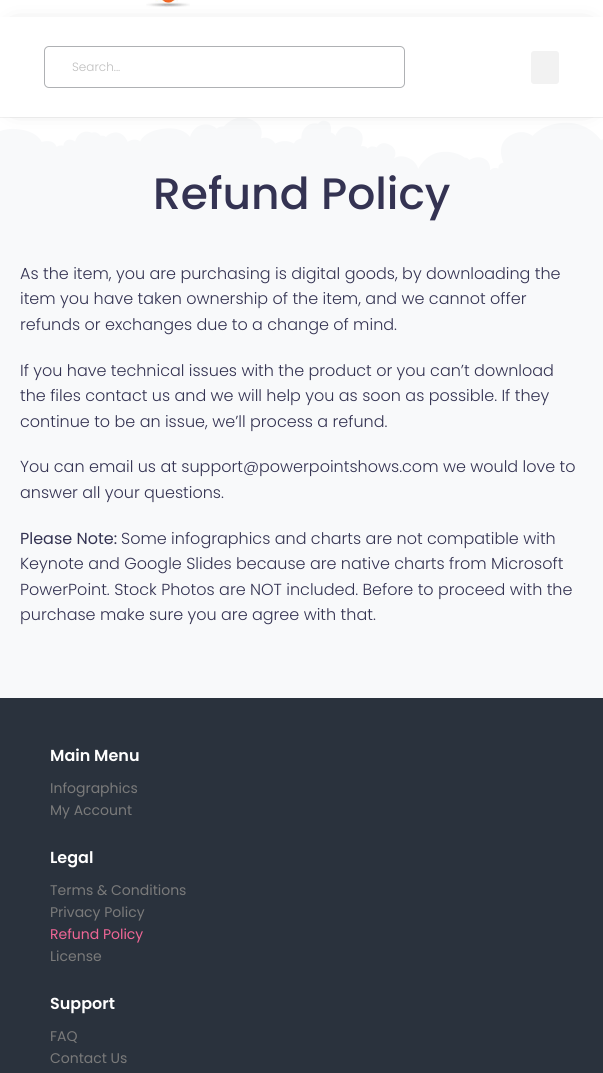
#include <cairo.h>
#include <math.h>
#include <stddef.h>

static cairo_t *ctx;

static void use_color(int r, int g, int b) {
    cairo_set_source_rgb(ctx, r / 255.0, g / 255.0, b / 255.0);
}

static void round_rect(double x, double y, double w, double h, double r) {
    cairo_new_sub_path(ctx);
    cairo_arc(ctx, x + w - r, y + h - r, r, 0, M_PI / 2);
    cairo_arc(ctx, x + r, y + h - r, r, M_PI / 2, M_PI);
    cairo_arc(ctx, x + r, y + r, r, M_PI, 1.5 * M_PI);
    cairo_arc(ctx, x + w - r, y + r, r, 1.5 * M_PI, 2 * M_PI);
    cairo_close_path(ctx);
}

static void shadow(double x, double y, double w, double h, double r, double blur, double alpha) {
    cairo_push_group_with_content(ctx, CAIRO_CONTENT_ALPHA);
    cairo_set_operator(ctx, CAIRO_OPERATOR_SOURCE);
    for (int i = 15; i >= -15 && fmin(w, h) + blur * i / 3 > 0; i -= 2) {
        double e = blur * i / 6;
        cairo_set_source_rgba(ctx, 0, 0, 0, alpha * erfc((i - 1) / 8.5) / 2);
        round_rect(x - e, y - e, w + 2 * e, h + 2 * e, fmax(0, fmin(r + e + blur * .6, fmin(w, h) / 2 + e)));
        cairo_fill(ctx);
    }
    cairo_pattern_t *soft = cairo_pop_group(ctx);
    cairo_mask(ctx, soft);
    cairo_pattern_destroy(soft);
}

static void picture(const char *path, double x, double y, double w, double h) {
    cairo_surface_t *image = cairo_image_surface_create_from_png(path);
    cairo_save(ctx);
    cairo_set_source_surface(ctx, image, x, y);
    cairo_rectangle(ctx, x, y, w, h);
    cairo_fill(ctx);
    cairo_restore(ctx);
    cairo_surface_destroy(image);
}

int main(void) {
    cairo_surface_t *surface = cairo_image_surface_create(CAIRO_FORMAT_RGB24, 603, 1073);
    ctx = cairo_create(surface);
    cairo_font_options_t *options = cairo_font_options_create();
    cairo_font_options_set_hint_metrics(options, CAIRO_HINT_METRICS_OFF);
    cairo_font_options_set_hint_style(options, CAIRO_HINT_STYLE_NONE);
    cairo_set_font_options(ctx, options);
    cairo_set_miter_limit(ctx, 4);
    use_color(255, 255, 255);
    cairo_paint(ctx);
    use_color(241, 241, 241);
    cairo_rectangle(ctx, 0, 117, 603, 1);
    cairo_fill(ctx);
    picture("img1.png", 146, 0, 44, 8);
    use_color(248, 249, 250);
    cairo_rectangle(ctx, 0, 118, 603, 580);
    cairo_fill(ctx);
    picture("img2.png", 0, 118, 603, 52);
    use_color(0, 0, 0);
    shadow(15, 32, 573, 70, 0, 12.5, 0.31);
    use_color(255, 255, 255);
    cairo_rectangle(ctx, 0, 17, 603, 100);
    cairo_fill(ctx);
    round_rect(44.5, 46.5, 360, 41, 4.5);
    use_color(175, 177, 180);
    cairo_set_line_width(ctx, 1);
    cairo_stroke(ctx);
    cairo_select_font_face(ctx, "Poppins Light", CAIRO_FONT_SLANT_NORMAL, CAIRO_FONT_WEIGHT_NORMAL);
    cairo_set_font_size(ctx, 12);
    use_color(190, 190, 190);
    cairo_move_to(ctx, 72, 71);
    cairo_show_text(ctx, "Search...");
    use_color(242, 242, 242);
    round_rect(531, 51, 28, 33, 3);
    cairo_fill(ctx);
    cairo_select_font_face(ctx, "Poppins Medium", CAIRO_FONT_SLANT_NORMAL, CAIRO_FONT_WEIGHT_NORMAL);
    cairo_set_font_size(ctx, 44);
    use_color(52, 51, 82);
    cairo_move_to(ctx, 153, 209);
    cairo_show_text(ctx, "Refund Policy");
    cairo_select_font_face(ctx, "Poppins Light", CAIRO_FONT_SLANT_NORMAL, CAIRO_FONT_WEIGHT_NORMAL);
    cairo_set_font_size(ctx, 16);
    cairo_move_to(ctx, 20, 279);
    cairo_show_text(ctx, "As the item, you are purchasing is digital goods, by downloading the");
    cairo_move_to(ctx, 20, 304);
    cairo_show_text(ctx, "item you have taken ownership of the item, and we cannot offer");
    cairo_move_to(ctx, 20, 330);
    cairo_show_text(ctx, "refunds or exchanges due to a change of mind.");
    cairo_move_to(ctx, 20, 376);
    cairo_show_text(ctx, "If you have technical issues with the product or you can’t download");
    cairo_move_to(ctx, 20, 401);
    cairo_show_text(ctx, "the files contact us and we will help you as soon as possible. If they");
    cairo_move_to(ctx, 20, 427);
    cairo_show_text(ctx, "continue to be an issue, we’ll process a refund.");
    cairo_move_to(ctx, 20, 472);
    cairo_show_text(ctx, "You can email us at support@powerpointshows.com we would love to");
    cairo_move_to(ctx, 20, 498);
    cairo_show_text(ctx, "answer all your questions.");
    cairo_select_font_face(ctx, "Poppins", CAIRO_FONT_SLANT_NORMAL, CAIRO_FONT_WEIGHT_NORMAL);
    cairo_move_to(ctx, 20, 544);
    cairo_show_text(ctx, "Please Note:");
    cairo_select_font_face(ctx, "Poppins Light", CAIRO_FONT_SLANT_NORMAL, CAIRO_FONT_WEIGHT_NORMAL);
    cairo_move_to(ctx, 121, 544);
    cairo_show_text(ctx, "Some infographics and charts are not compatible with");
    cairo_move_to(ctx, 20, 569);
    cairo_show_text(ctx, "Keynote and Google Slides because are native charts from Microsoft");
    cairo_move_to(ctx, 20, 595);
    cairo_show_text(ctx, "PowerPoint. Stock Photos are NOT included. Before to proceed with the");
    cairo_move_to(ctx, 20, 620);
    cairo_show_text(ctx, "purchase make sure you are agree with that.");
    use_color(42, 50, 61);
    cairo_rectangle(ctx, 0, 698, 603, 375);
    cairo_fill(ctx);
    cairo_select_font_face(ctx, "Poppins SemiBold", CAIRO_FONT_SLANT_NORMAL, CAIRO_FONT_WEIGHT_NORMAL);
    use_color(255, 255, 255);
    cairo_move_to(ctx, 50, 761);
    cairo_show_text(ctx, "Main Menu");
    cairo_select_font_face(ctx, "Poppins", CAIRO_FONT_SLANT_NORMAL, CAIRO_FONT_WEIGHT_NORMAL);
    cairo_set_font_size(ctx, 14);
    use_color(122, 122, 122);
    cairo_move_to(ctx, 50, 793);
    cairo_show_text(ctx, "Infographics");
    cairo_move_to(ctx, 50, 815);
    cairo_show_text(ctx, "My Account");
    cairo_select_font_face(ctx, "Poppins SemiBold", CAIRO_FONT_SLANT_NORMAL, CAIRO_FONT_WEIGHT_NORMAL);
    cairo_set_font_size(ctx, 16);
    use_color(255, 255, 255);
    cairo_move_to(ctx, 50, 863);
    cairo_show_text(ctx, "Legal");
    cairo_select_font_face(ctx, "Poppins", CAIRO_FONT_SLANT_NORMAL, CAIRO_FONT_WEIGHT_NORMAL);
    cairo_set_font_size(ctx, 14);
    use_color(122, 122, 122);
    cairo_move_to(ctx, 50, 895);
    cairo_show_text(ctx, "Terms & Conditions");
    cairo_move_to(ctx, 50, 917);
    cairo_show_text(ctx, "Privacy Policy");
    use_color(240, 102, 150);
    cairo_move_to(ctx, 50, 939);
    cairo_show_text(ctx, "Refund Policy");
    use_color(122, 122, 122);
    cairo_move_to(ctx, 50, 961);
    cairo_show_text(ctx, "License");
    cairo_select_font_face(ctx, "Poppins SemiBold", CAIRO_FONT_SLANT_NORMAL, CAIRO_FONT_WEIGHT_NORMAL);
    cairo_set_font_size(ctx, 16);
    use_color(255, 255, 255);
    cairo_move_to(ctx, 50, 1009);
    cairo_show_text(ctx, "Support");
    cairo_select_font_face(ctx, "Poppins", CAIRO_FONT_SLANT_NORMAL, CAIRO_FONT_WEIGHT_NORMAL);
    cairo_set_font_size(ctx, 14);
    use_color(122, 122, 122);
    cairo_move_to(ctx, 50, 1041);
    cairo_show_text(ctx, "FAQ");
    cairo_move_to(ctx, 50, 1063);
    cairo_show_text(ctx, "Contact Us");
    cairo_surface_write_to_png(surface, "result.png");
    cairo_font_options_destroy(options);
    cairo_destroy(ctx);
    cairo_surface_destroy(surface);
    return 0;
}
